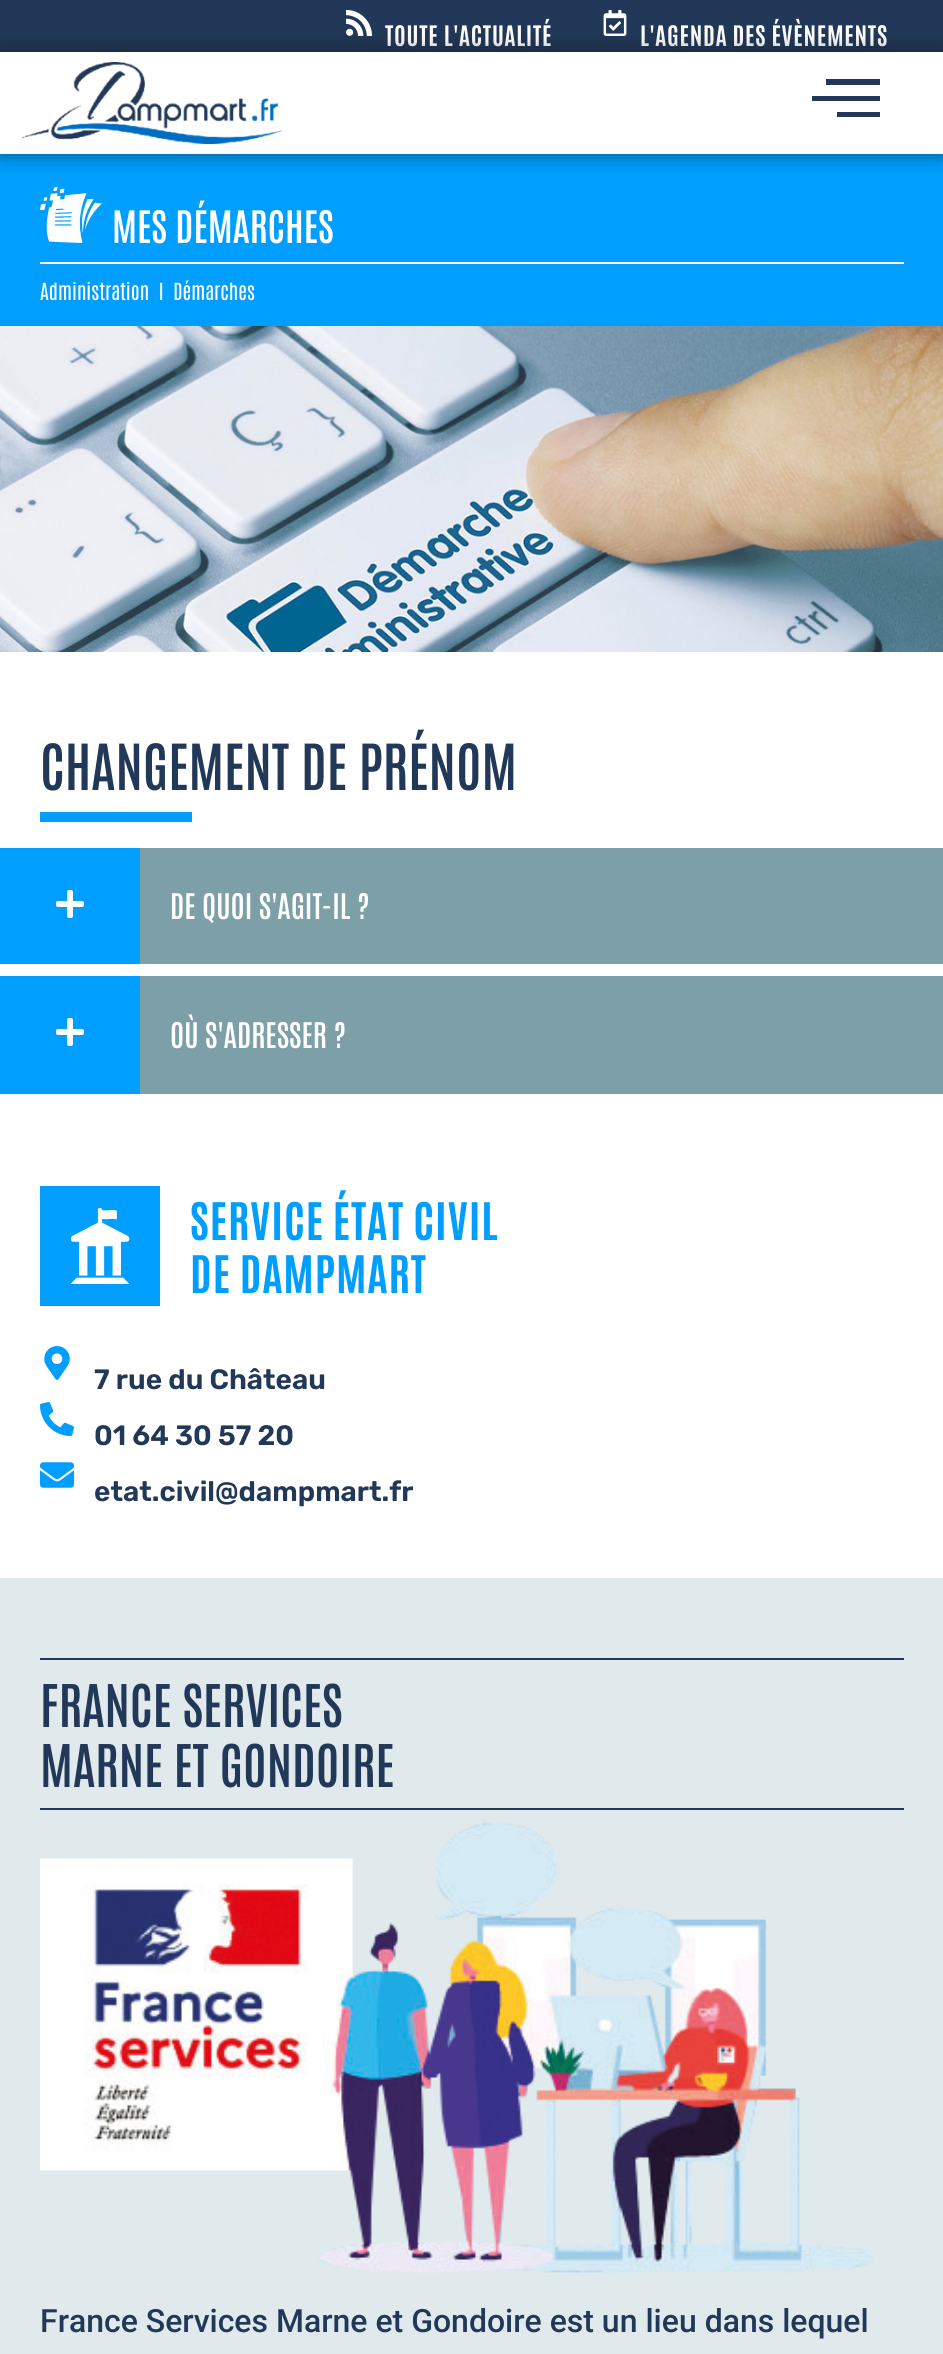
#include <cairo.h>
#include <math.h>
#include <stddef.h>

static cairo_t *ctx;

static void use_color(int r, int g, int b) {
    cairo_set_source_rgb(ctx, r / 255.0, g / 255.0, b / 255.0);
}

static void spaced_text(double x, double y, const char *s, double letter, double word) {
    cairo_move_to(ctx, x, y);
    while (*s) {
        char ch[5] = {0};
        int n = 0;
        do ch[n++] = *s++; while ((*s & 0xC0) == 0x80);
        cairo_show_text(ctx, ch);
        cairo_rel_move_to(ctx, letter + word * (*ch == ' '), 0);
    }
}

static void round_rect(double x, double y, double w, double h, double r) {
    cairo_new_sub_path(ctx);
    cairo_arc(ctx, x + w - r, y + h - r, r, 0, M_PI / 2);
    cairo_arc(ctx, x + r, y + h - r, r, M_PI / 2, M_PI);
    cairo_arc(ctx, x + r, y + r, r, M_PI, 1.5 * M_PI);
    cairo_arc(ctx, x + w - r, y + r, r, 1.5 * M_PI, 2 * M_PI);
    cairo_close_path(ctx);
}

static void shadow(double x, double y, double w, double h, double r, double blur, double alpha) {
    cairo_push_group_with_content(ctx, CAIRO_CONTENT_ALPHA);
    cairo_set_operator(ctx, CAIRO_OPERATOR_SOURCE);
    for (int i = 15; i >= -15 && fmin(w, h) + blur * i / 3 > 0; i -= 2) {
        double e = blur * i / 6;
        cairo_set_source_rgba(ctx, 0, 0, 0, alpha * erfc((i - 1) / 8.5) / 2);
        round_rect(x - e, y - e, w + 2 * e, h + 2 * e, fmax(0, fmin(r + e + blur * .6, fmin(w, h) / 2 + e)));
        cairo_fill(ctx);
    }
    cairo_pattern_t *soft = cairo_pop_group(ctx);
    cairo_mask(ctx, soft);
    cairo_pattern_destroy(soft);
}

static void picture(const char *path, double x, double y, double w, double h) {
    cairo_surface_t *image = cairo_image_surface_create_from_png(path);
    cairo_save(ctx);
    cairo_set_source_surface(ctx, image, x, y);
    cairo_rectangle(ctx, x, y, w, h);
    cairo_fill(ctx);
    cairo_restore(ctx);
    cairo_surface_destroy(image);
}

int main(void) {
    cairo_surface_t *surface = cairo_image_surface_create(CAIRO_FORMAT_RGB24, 943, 2354);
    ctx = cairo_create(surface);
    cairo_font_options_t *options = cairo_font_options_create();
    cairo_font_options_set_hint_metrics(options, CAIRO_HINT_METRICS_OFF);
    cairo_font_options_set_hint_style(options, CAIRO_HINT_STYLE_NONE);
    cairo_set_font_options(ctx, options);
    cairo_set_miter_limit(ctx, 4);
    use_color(255, 255, 255);
    cairo_paint(ctx);
    use_color(34, 56, 88);
    cairo_rectangle(ctx, 0, 0, 943, 52);
    cairo_fill(ctx);
    picture("img1.png", 346, 10, 26, 26);
    cairo_select_font_face(ctx, "Antonio", CAIRO_FONT_SLANT_NORMAL, CAIRO_FONT_WEIGHT_BOLD);
    cairo_set_font_size(ctx, 24);
    use_color(255, 255, 255);
    spaced_text(385, 46, "TOUTE L'ACTUALITÉ", 0.8, 0);
    picture("img2.png", 603, 10, 24, 26);
    spaced_text(640, 46, "L'AGENDA DES ÉVÈNEMENTS", 0.8, 0);
    use_color(0, 159, 255);
    cairo_rectangle(ctx, 0, 154, 943, 172);
    cairo_fill(ctx);
    cairo_save(ctx);
    cairo_set_fill_rule(ctx, CAIRO_FILL_RULE_EVEN_ODD);
    cairo_new_path(ctx);
    cairo_move_to(ctx, 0, 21);
    cairo_line_to(ctx, 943, 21);
    cairo_line_to(ctx, 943, 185);
    cairo_line_to(ctx, 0, 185);
    cairo_close_path(ctx);
    cairo_move_to(ctx, 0, 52);
    cairo_line_to(ctx, 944, 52);
    cairo_line_to(ctx, 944, 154);
    cairo_line_to(ctx, 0, 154);
    cairo_close_path(ctx);
    cairo_clip(ctx);
    use_color(0, 0, 0);
    shadow(0, 52, 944, 102, 0, 10, 0.5);
    cairo_restore(ctx);
    picture("img3.png", 20, 62, 264, 82);
    use_color(34, 56, 88);
    cairo_new_path(ctx);
    cairo_move_to(ctx, 812, 101);
    cairo_line_to(ctx, 880, 101);
    cairo_line_to(ctx, 880, 96);
    cairo_line_to(ctx, 812, 96);
    cairo_close_path(ctx);
    cairo_move_to(ctx, 837, 117);
    cairo_line_to(ctx, 880, 117);
    cairo_line_to(ctx, 880, 112);
    cairo_line_to(ctx, 837, 112);
    cairo_close_path(ctx);
    cairo_move_to(ctx, 826, 79);
    cairo_line_to(ctx, 826, 85);
    cairo_line_to(ctx, 880, 85);
    cairo_line_to(ctx, 880, 79);
    cairo_close_path(ctx);
    cairo_fill(ctx);
    picture("img4.png", 40, 187, 62, 56);
    cairo_select_font_face(ctx, "Antonio SemiBold", CAIRO_FONT_SLANT_NORMAL, CAIRO_FONT_WEIGHT_NORMAL);
    cairo_set_font_size(ctx, 38);
    use_color(255, 255, 255);
    cairo_move_to(ctx, 112, 243);
    cairo_show_text(ctx, "MES DÉMARCHES");
    cairo_rectangle(ctx, 40, 262, 864, 2);
    cairo_fill(ctx);
    cairo_select_font_face(ctx, "Antonio", CAIRO_FONT_SLANT_NORMAL, CAIRO_FONT_WEIGHT_NORMAL);
    cairo_set_font_size(ctx, 20);
    cairo_move_to(ctx, 40, 300);
    cairo_show_text(ctx, "Administration  I  Démarches");
    picture("img5.png", 0, 326, 943, 326);
    cairo_select_font_face(ctx, "Antonio SemiBold", CAIRO_FONT_SLANT_NORMAL, CAIRO_FONT_WEIGHT_NORMAL);
    cairo_set_font_size(ctx, 54);
    use_color(34, 56, 88);
    cairo_move_to(ctx, 40, 790);
    cairo_show_text(ctx, "CHANGEMENT DE PRÉNOM");
    use_color(0, 159, 255);
    cairo_rectangle(ctx, 40, 812, 152, 10);
    cairo_fill(ctx);
    use_color(125, 159, 167);
    cairo_rectangle(ctx, 140, 848, 803, 116);
    cairo_fill(ctx);
    use_color(0, 159, 255);
    cairo_rectangle(ctx, 0, 848, 140, 116);
    cairo_fill(ctx);
    picture("img6.png", 56, 890, 28, 28);
    cairo_set_font_size(ctx, 30);
    use_color(255, 255, 255);
    cairo_move_to(ctx, 170, 919);
    cairo_show_text(ctx, "DE QUOI S'AGIT-IL ?");
    use_color(125, 159, 167);
    cairo_rectangle(ctx, 140, 976, 803, 118);
    cairo_fill(ctx);
    use_color(0, 159, 255);
    cairo_rectangle(ctx, 0, 976, 140, 118);
    cairo_fill(ctx);
    picture("img6.png", 56, 1018, 28, 28);
    use_color(255, 255, 255);
    cairo_move_to(ctx, 170, 1048);
    cairo_show_text(ctx, "OÙ S'ADRESSER ?");
    use_color(0, 159, 255);
    cairo_rectangle(ctx, 40, 1186, 120, 120);
    cairo_fill(ctx);
    picture("img7.png", 70, 1208, 60, 76);
    cairo_select_font_face(ctx, "Antonio", CAIRO_FONT_SLANT_NORMAL, CAIRO_FONT_WEIGHT_BOLD);
    cairo_set_font_size(ctx, 44);
    spaced_text(190, 1240, "SERVICE ÉTAT CIVIL", 1, 0);
    spaced_text(190, 1293, "DE DAMPMART", 1, 0);
    picture("img8.png", 44, 1346, 26, 34);
    cairo_select_font_face(ctx, "Rubik SemiBold", CAIRO_FONT_SLANT_NORMAL, CAIRO_FONT_WEIGHT_NORMAL);
    cairo_set_font_size(ctx, 28);
    use_color(34, 56, 88);
    cairo_move_to(ctx, 94, 1389);
    cairo_show_text(ctx, "7 rue du Château");
    picture("img9.png", 40, 1402, 34, 34);
    cairo_move_to(ctx, 94, 1445);
    cairo_show_text(ctx, "01 64 30 57 20");
    picture("img10.png", 40, 1462, 34, 26);
    cairo_move_to(ctx, 94, 1501);
    cairo_show_text(ctx, "etat.civil@dampmart.fr");
    use_color(224, 233, 236);
    cairo_rectangle(ctx, 0, 1578, 943, 776);
    cairo_fill(ctx);
    use_color(34, 56, 88);
    cairo_rectangle(ctx, 40, 1658, 864, 2);
    cairo_fill(ctx);
    cairo_rectangle(ctx, 40, 1808, 864, 2);
    cairo_fill(ctx);
    cairo_select_font_face(ctx, "Antonio SemiBold", CAIRO_FONT_SLANT_NORMAL, CAIRO_FONT_WEIGHT_NORMAL);
    cairo_set_font_size(ctx, 50);
    cairo_move_to(ctx, 40, 1727);
    cairo_show_text(ctx, "FRANCE SERVICES");
    cairo_move_to(ctx, 40, 1787);
    cairo_show_text(ctx, "MARNE ET GONDOIRE");
    picture("img11.png", 40, 1822, 834, 451);
    cairo_select_font_face(ctx, "Roboto Medium", CAIRO_FONT_SLANT_NORMAL, CAIRO_FONT_WEIGHT_NORMAL);
    cairo_set_font_size(ctx, 32);
    cairo_move_to(ctx, 40, 2332);
    cairo_show_text(ctx, "France Services Marne et Gondoire est un lieu dans lequel");
    cairo_surface_write_to_png(surface, "result.png");
    cairo_font_options_destroy(options);
    cairo_destroy(ctx);
    cairo_surface_destroy(surface);
    return 0;
}
